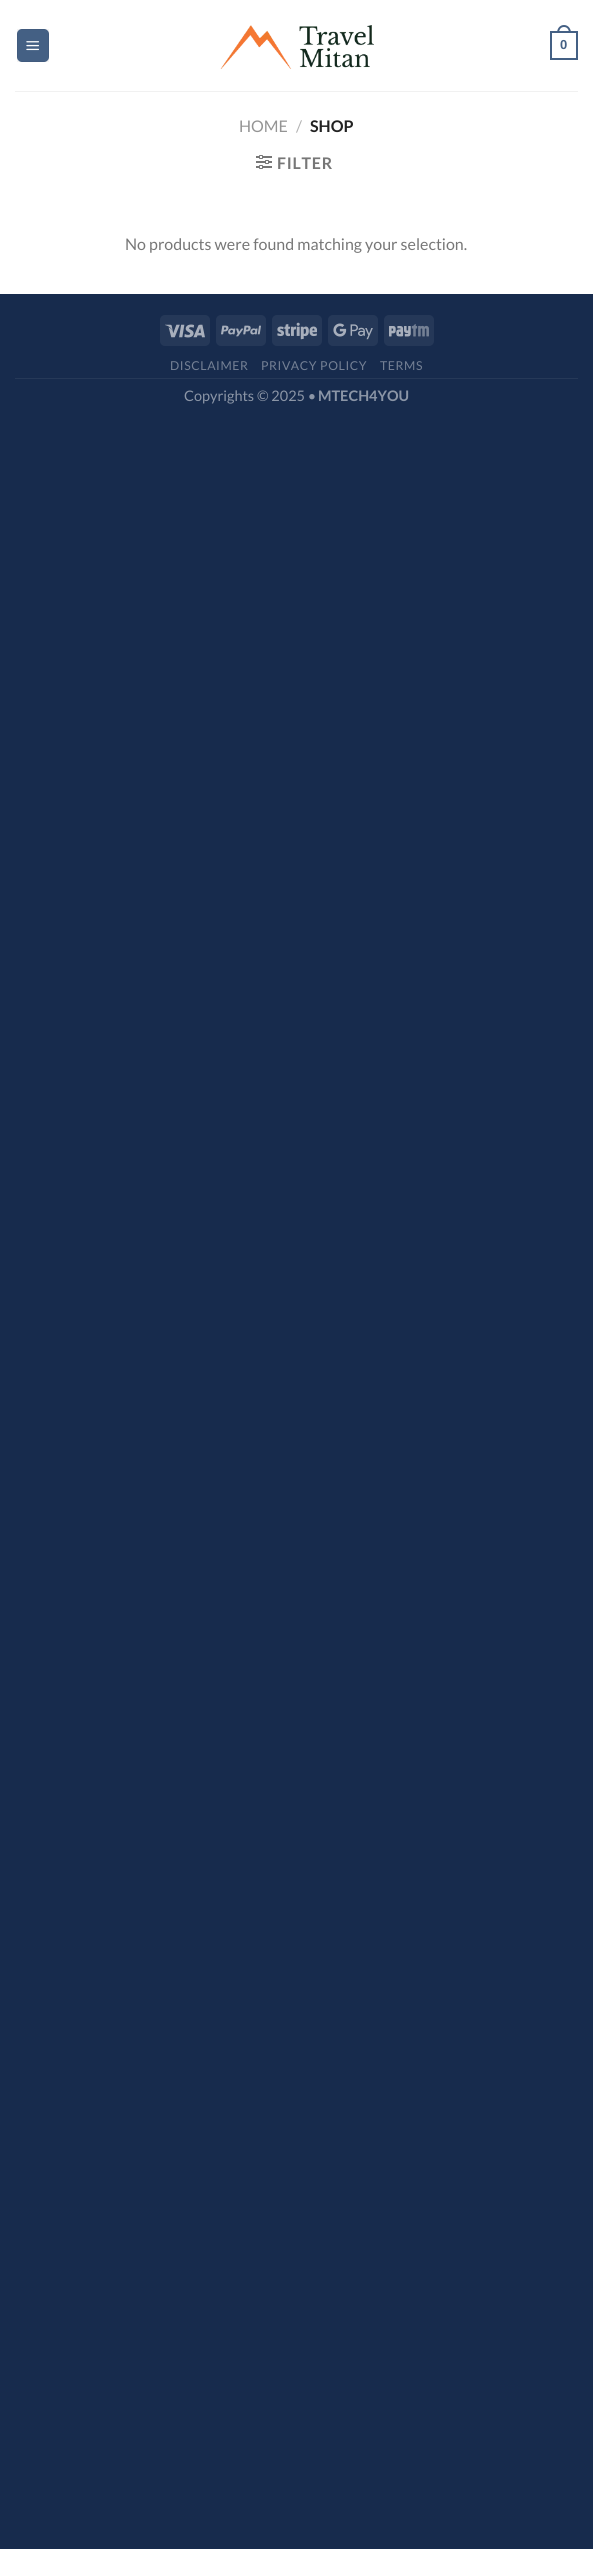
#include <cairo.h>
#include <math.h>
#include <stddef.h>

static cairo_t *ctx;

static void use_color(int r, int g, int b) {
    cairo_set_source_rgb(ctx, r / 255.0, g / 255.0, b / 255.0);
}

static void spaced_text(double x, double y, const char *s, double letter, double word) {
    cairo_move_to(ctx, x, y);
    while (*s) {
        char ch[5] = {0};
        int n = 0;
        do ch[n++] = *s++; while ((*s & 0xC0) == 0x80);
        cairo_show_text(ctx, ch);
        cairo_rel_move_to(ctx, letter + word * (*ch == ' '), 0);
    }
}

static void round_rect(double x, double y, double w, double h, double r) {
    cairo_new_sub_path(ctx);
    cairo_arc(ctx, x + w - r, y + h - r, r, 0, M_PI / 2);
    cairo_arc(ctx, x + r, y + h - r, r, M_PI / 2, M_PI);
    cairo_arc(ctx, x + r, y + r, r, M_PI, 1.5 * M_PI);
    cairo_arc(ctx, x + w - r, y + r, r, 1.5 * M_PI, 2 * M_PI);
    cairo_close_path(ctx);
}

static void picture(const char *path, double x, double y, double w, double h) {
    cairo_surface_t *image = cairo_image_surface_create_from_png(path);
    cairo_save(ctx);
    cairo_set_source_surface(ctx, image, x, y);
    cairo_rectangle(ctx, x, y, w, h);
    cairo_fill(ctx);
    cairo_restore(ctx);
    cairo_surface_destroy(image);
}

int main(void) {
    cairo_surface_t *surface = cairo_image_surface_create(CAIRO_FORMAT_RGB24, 593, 2549);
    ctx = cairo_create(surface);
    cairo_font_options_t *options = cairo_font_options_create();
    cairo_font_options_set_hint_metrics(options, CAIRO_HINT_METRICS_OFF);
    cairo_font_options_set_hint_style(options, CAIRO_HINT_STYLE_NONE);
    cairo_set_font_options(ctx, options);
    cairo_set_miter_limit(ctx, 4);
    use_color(23, 43, 77);
    cairo_paint(ctx);
    use_color(255, 255, 255);
    cairo_rectangle(ctx, 0, 0, 593, 294);
    cairo_fill(ctx);
    use_color(68, 96, 132);
    round_rect(17, 29, 32, 33, 5);
    cairo_fill(ctx);
    cairo_rectangle(ctx, 17.5, 29.5, 31, 32);
    cairo_set_source_rgba(ctx, 0, 0, 0, 0.05);
    cairo_set_line_width(ctx, 1);
    cairo_stroke(ctx);
    picture("img1.png", 26, 41, 13, 10);
    picture("img2.png", 220, 25, 154, 44);
    cairo_rectangle(ctx, 551, 32, 26, 27);
    use_color(68, 96, 132);
    cairo_set_line_width(ctx, 2);
    cairo_stroke(ctx);
    cairo_set_fill_rule(ctx, CAIRO_FILL_RULE_EVEN_ODD);
    cairo_new_path(ctx);
    cairo_move_to(ctx, 564, 25);
    cairo_curve_to(ctx, 568.5, 25, 571, 29, 571, 33);
    cairo_line_to(ctx, 557, 33);
    cairo_curve_to(ctx, 557, 29, 559.5, 25, 564, 25);
    cairo_close_path(ctx);
    cairo_move_to(ctx, 564, 27);
    cairo_curve_to(ctx, 567.5, 27, 569, 30, 569, 33);
    cairo_line_to(ctx, 559, 33);
    cairo_curve_to(ctx, 559, 30, 560.5, 27, 564, 27);
    cairo_close_path(ctx);
    cairo_fill(ctx);
    cairo_select_font_face(ctx, "Liberation Sans", CAIRO_FONT_SLANT_NORMAL, CAIRO_FONT_WEIGHT_BOLD);
    cairo_set_font_size(ctx, 13);
    cairo_move_to(ctx, 560, 49);
    cairo_show_text(ctx, "0");
    use_color(241, 241, 241);
    cairo_rectangle(ctx, 15, 91, 563, 1);
    cairo_fill(ctx);
    cairo_select_font_face(ctx, "Lato", CAIRO_FONT_SLANT_NORMAL, CAIRO_FONT_WEIGHT_NORMAL);
    cairo_set_font_size(ctx, 16);
    use_color(148, 148, 148);
    cairo_move_to(ctx, 239, 132);
    cairo_show_text(ctx, "HOME");
    use_color(178, 178, 178);
    cairo_move_to(ctx, 296, 132);
    cairo_show_text(ctx, "/");
    cairo_select_font_face(ctx, "Lato", CAIRO_FONT_SLANT_NORMAL, CAIRO_FONT_WEIGHT_BOLD);
    use_color(34, 34, 34);
    cairo_move_to(ctx, 310, 132);
    cairo_show_text(ctx, "SHOP");
    picture("img3.png", 256, 155, 16, 14);
    use_color(119, 119, 119);
    spaced_text(277, 169, "FILTER", 0.75, 0);
    cairo_select_font_face(ctx, "Lato", CAIRO_FONT_SLANT_NORMAL, CAIRO_FONT_WEIGHT_NORMAL);
    cairo_move_to(ctx, 125, 250);
    cairo_show_text(ctx, "No products were found matching your selection.");
    use_color(37, 56, 88);
    round_rect(160, 315, 50, 31, 5);
    cairo_fill(ctx);
    picture("img4.png", 165, 324, 40, 14);
    round_rect(216, 315, 50, 31, 5);
    cairo_fill(ctx);
    picture("img5.png", 221, 325, 40, 12);
    round_rect(272, 315, 50, 31, 5);
    cairo_fill(ctx);
    picture("img6.png", 277, 322, 40, 18);
    round_rect(328, 315, 50, 31, 5);
    cairo_fill(ctx);
    picture("img7.png", 333, 323, 40, 17);
    round_rect(384, 315, 50, 31, 5);
    cairo_fill(ctx);
    picture("img8.png", 389, 324, 40, 13);
    use_color(38, 57, 88);
    cairo_rectangle(ctx, 15, 378, 563, 1);
    cairo_fill(ctx);
    cairo_set_font_size(ctx, 12.25);
    use_color(116, 128, 148);
    spaced_text(170, 370, "DISCLAIMER", 0.6, 0);
    spaced_text(261, 370, "PRIVACY POLICY", 0.6, 0);
    spaced_text(380, 370, "TERMS", 0.6, 0);
    cairo_set_font_size(ctx, 14.5);
    use_color(139, 149, 166);
    cairo_move_to(ctx, 184, 401);
    cairo_show_text(ctx, "Copyrights © 2025 •");
    cairo_select_font_face(ctx, "Lato", CAIRO_FONT_SLANT_NORMAL, CAIRO_FONT_WEIGHT_BOLD);
    cairo_move_to(ctx, 318, 401);
    cairo_show_text(ctx, "MTECH4YOU");
    cairo_surface_write_to_png(surface, "result.png");
    cairo_font_options_destroy(options);
    cairo_destroy(ctx);
    cairo_surface_destroy(surface);
    return 0;
}
